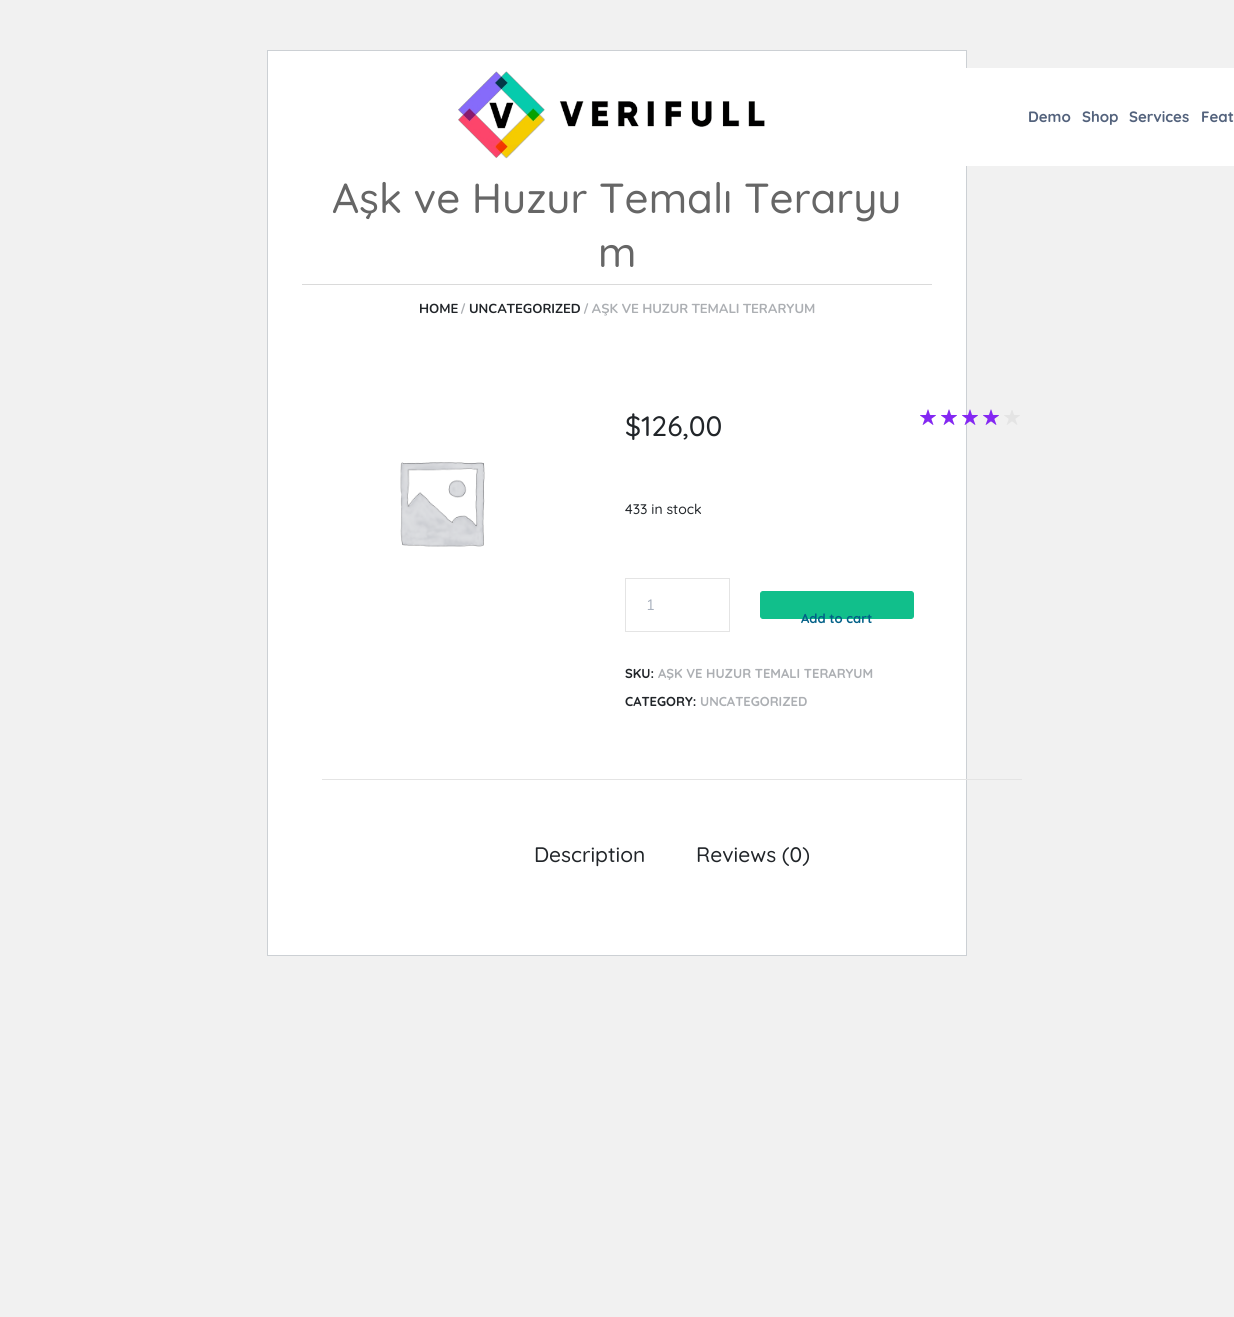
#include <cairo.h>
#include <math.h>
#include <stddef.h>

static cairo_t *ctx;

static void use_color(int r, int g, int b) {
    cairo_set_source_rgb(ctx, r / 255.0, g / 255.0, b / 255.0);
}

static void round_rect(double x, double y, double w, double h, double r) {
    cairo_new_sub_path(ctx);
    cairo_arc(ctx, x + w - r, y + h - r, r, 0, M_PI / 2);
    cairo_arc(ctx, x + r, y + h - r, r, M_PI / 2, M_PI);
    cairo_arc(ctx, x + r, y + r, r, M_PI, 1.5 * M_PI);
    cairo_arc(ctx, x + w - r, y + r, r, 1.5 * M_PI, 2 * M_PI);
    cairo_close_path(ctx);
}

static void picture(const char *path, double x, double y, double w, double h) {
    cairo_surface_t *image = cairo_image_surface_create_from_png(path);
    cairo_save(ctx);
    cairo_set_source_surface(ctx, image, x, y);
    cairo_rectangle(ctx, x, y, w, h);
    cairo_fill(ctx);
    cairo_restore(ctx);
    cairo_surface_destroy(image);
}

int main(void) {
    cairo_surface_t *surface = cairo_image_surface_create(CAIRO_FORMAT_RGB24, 1234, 1317);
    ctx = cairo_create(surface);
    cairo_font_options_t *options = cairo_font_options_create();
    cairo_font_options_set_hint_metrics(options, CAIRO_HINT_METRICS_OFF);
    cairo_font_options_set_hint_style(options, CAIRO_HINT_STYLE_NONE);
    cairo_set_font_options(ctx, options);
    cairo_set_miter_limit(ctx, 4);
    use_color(241, 241, 241);
    cairo_paint(ctx);
    use_color(255, 255, 255);
    cairo_rectangle(ctx, 267.5, 50.5, 699, 905);
    cairo_fill_preserve(ctx);
    use_color(204, 208, 212);
    cairo_set_line_width(ctx, 1);
    cairo_stroke(ctx);
    use_color(255, 255, 255);
    cairo_rectangle(ctx, 966, 68, 268, 98);
    cairo_fill(ctx);
    picture("img1.png", 458, 71, 307, 88);
    cairo_select_font_face(ctx, "Quicksand", CAIRO_FONT_SLANT_NORMAL, CAIRO_FONT_WEIGHT_BOLD);
    cairo_set_font_size(ctx, 15);
    use_color(83, 98, 124);
    cairo_move_to(ctx, 1028, 122);
    cairo_show_text(ctx, "Demo");
    cairo_move_to(ctx, 1082, 122);
    cairo_show_text(ctx, "Shop");
    cairo_move_to(ctx, 1129, 122);
    cairo_show_text(ctx, "Services");
    cairo_move_to(ctx, 1201, 122);
    cairo_show_text(ctx, "Feat");
    use_color(218, 218, 218);
    cairo_rectangle(ctx, 302, 284, 630, 1);
    cairo_fill(ctx);
    cairo_select_font_face(ctx, "Quicksand Medium", CAIRO_FONT_SLANT_NORMAL, CAIRO_FONT_WEIGHT_NORMAL);
    cairo_set_font_size(ctx, 42);
    use_color(102, 102, 102);
    cairo_move_to(ctx, 332, 213);
    cairo_show_text(ctx, "Aşk ve Huzur Temalı Teraryu");
    cairo_move_to(ctx, 598, 267);
    cairo_show_text(ctx, "m");
    cairo_select_font_face(ctx, "Nunito", CAIRO_FONT_SLANT_NORMAL, CAIRO_FONT_WEIGHT_BOLD);
    cairo_set_font_size(ctx, 13);
    use_color(33, 37, 41);
    cairo_move_to(ctx, 419, 313);
    cairo_show_text(ctx, "HOME");
    use_color(172, 175, 179);
    cairo_move_to(ctx, 461, 313);
    cairo_show_text(ctx, "/");
    use_color(33, 37, 41);
    cairo_move_to(ctx, 469, 313);
    cairo_show_text(ctx, "UNCATEGORIZED");
    use_color(172, 175, 179);
    cairo_move_to(ctx, 584, 313);
    cairo_show_text(ctx, "/ AŞK VE HUZUR TEMALI TERARYUM");
    picture("img2.png", 400, 462, 85, 85);
    cairo_select_font_face(ctx, "Quicksand Medium", CAIRO_FONT_SLANT_NORMAL, CAIRO_FONT_WEIGHT_NORMAL);
    cairo_set_font_size(ctx, 28);
    use_color(33, 37, 41);
    cairo_move_to(ctx, 625, 436);
    cairo_show_text(ctx, "$126,00");
    picture("img3.png", 920, 409, 16, 16);
    picture("img3.png", 941, 409, 16, 16);
    picture("img4.png", 962, 410, 16, 15);
    picture("img5.png", 983, 410, 16, 15);
    picture("img5.png", 1004, 410, 16, 15);
    picture("img6.png", 920, 409, 16, 16);
    picture("img6.png", 941, 409, 16, 16);
    picture("img7.png", 962, 409, 16, 16);
    picture("img8.png", 983, 409, 16, 16);
    cairo_set_font_size(ctx, 14);
    cairo_move_to(ctx, 625, 514);
    cairo_show_text(ctx, "433 in stock");
    cairo_rectangle(ctx, 625.5, 578.5, 104, 53);
    use_color(228, 228, 228);
    cairo_stroke(ctx);
    cairo_select_font_face(ctx, "Nunito", CAIRO_FONT_SLANT_NORMAL, CAIRO_FONT_WEIGHT_NORMAL);
    cairo_set_font_size(ctx, 15);
    use_color(169, 177, 190);
    cairo_move_to(ctx, 646, 610);
    cairo_show_text(ctx, "1");
    use_color(17, 191, 139);
    round_rect(760.5, 591.5, 153, 27, 2.5);
    cairo_fill_preserve(ctx);
    cairo_stroke(ctx);
    cairo_select_font_face(ctx, "Quicksand", CAIRO_FONT_SLANT_NORMAL, CAIRO_FONT_WEIGHT_BOLD);
    cairo_set_font_size(ctx, 13);
    use_color(1, 96, 135);
    cairo_move_to(ctx, 801, 623);
    cairo_show_text(ctx, "Add to cart");
    use_color(33, 37, 41);
    cairo_move_to(ctx, 625, 678);
    cairo_show_text(ctx, "SKU:");
    use_color(172, 175, 179);
    cairo_move_to(ctx, 658, 678);
    cairo_show_text(ctx, "AŞK VE HUZUR TEMALI TERARYUM");
    use_color(33, 37, 41);
    cairo_move_to(ctx, 625, 706);
    cairo_show_text(ctx, "CATEGORY:");
    use_color(172, 175, 179);
    cairo_move_to(ctx, 700, 706);
    cairo_show_text(ctx, "UNCATEGORIZED");
    use_color(228, 228, 228);
    cairo_rectangle(ctx, 322, 779, 700, 1);
    cairo_fill(ctx);
    cairo_select_font_face(ctx, "Quicksand Medium", CAIRO_FONT_SLANT_NORMAL, CAIRO_FONT_WEIGHT_NORMAL);
    cairo_set_font_size(ctx, 21);
    use_color(33, 37, 41);
    cairo_move_to(ctx, 534, 862);
    cairo_show_text(ctx, "Description");
    cairo_move_to(ctx, 696, 862);
    cairo_show_text(ctx, "Reviews (0)");
    cairo_surface_write_to_png(surface, "result.png");
    cairo_font_options_destroy(options);
    cairo_destroy(ctx);
    cairo_surface_destroy(surface);
    return 0;
}
